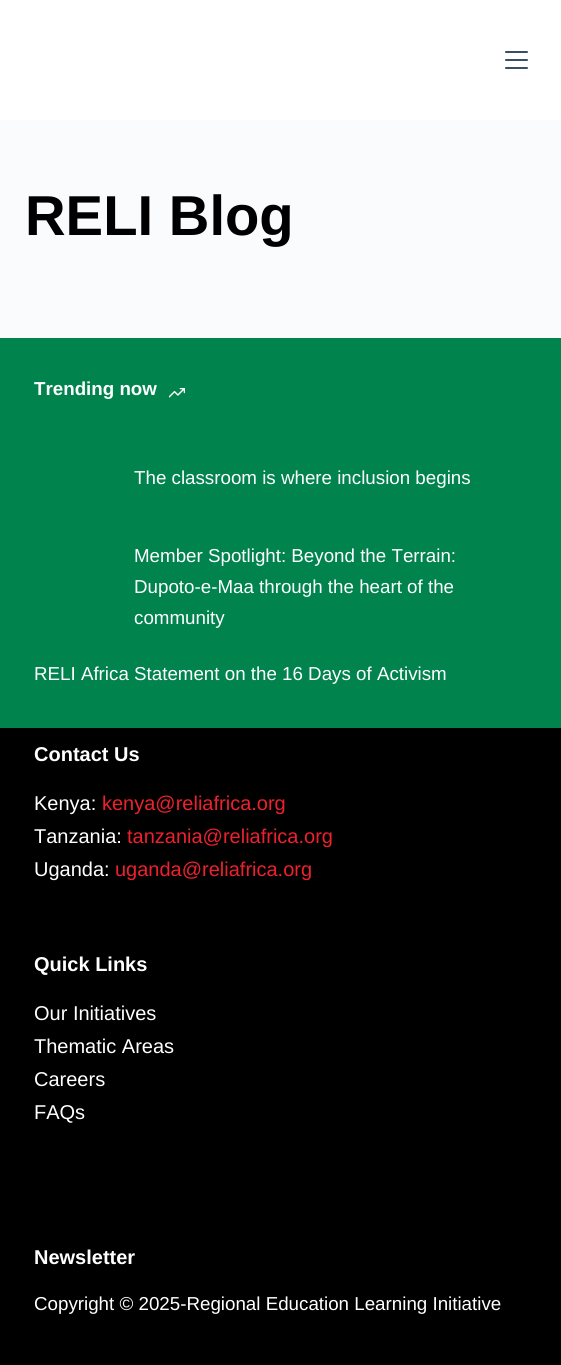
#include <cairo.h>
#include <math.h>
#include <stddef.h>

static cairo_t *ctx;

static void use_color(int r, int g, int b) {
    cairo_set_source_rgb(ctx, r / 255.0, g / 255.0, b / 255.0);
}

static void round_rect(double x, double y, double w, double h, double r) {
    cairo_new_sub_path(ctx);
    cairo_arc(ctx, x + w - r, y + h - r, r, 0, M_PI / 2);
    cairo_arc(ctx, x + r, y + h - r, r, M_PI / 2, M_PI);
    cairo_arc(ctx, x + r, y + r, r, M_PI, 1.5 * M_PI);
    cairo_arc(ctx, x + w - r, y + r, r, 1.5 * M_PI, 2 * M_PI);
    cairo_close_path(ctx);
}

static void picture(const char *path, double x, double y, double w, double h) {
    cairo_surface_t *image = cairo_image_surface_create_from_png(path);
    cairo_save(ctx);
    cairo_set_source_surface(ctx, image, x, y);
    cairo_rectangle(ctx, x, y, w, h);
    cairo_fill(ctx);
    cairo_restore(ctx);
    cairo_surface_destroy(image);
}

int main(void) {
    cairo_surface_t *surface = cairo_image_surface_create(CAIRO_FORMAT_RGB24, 561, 1365);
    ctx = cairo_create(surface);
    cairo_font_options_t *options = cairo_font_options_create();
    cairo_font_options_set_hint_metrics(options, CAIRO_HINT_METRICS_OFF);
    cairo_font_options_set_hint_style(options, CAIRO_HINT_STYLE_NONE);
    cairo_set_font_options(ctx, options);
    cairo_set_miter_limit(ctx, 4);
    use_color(250, 251, 252);
    cairo_paint(ctx);
    use_color(255, 255, 255);
    cairo_rectangle(ctx, 0, 0, 561, 120);
    cairo_fill(ctx);
    use_color(58, 79, 102);
    round_rect(505, 51, 23, 2, 1);
    cairo_fill(ctx);
    round_rect(505, 59, 23, 2, 1);
    cairo_fill(ctx);
    round_rect(505, 67, 23, 2, 1);
    cairo_fill(ctx);
    cairo_select_font_face(ctx, "Liberation Sans", CAIRO_FONT_SLANT_NORMAL, CAIRO_FONT_WEIGHT_BOLD);
    cairo_set_font_size(ctx, 56.25);
    use_color(0, 0, 0);
    cairo_move_to(ctx, 25, 235);
    cairo_show_text(ctx, "RELI Blog");
    use_color(0, 131, 77);
    cairo_rectangle(ctx, 0, 338, 561, 390);
    cairo_fill(ctx);
    cairo_set_font_size(ctx, 18.75);
    use_color(255, 255, 255);
    cairo_move_to(ctx, 34, 395);
    cairo_show_text(ctx, "Trending now");
    picture("img1.png", 169, 388, 16, 10);
    cairo_select_font_face(ctx, "Liberation Sans", CAIRO_FONT_SLANT_NORMAL, CAIRO_FONT_WEIGHT_NORMAL);
    cairo_move_to(ctx, 134, 484);
    cairo_show_text(ctx, "The classroom is where inclusion begins");
    cairo_move_to(ctx, 134, 562);
    cairo_show_text(ctx, "Member Spotlight: Beyond the Terrain:");
    cairo_move_to(ctx, 134, 593);
    cairo_show_text(ctx, "Dupoto-e-Maa through the heart of the");
    cairo_move_to(ctx, 134, 624);
    cairo_show_text(ctx, "community");
    cairo_move_to(ctx, 34, 680);
    cairo_show_text(ctx, "RELI Africa Statement on the 16 Days of Activism");
    use_color(0, 0, 0);
    cairo_rectangle(ctx, 0, 728, 561, 637);
    cairo_fill(ctx);
    cairo_select_font_face(ctx, "Liberation Sans", CAIRO_FONT_SLANT_NORMAL, CAIRO_FONT_WEIGHT_BOLD);
    cairo_set_font_size(ctx, 20);
    use_color(255, 255, 255);
    cairo_move_to(ctx, 34, 761);
    cairo_show_text(ctx, "Contact Us");
    cairo_select_font_face(ctx, "Liberation Sans", CAIRO_FONT_SLANT_NORMAL, CAIRO_FONT_WEIGHT_NORMAL);
    cairo_move_to(ctx, 34, 810);
    cairo_show_text(ctx, "Kenya:");
    use_color(238, 32, 46);
    cairo_move_to(ctx, 102, 810);
    cairo_show_text(ctx, "kenya@reliafrica.org");
    use_color(255, 255, 255);
    cairo_move_to(ctx, 34, 843);
    cairo_show_text(ctx, "Tanzania:");
    use_color(238, 32, 46);
    cairo_move_to(ctx, 127, 843);
    cairo_show_text(ctx, "tanzania@reliafrica.org");
    use_color(255, 255, 255);
    cairo_move_to(ctx, 34, 876);
    cairo_show_text(ctx, "Uganda:");
    use_color(238, 32, 46);
    cairo_move_to(ctx, 115, 876);
    cairo_show_text(ctx, "uganda@reliafrica.org");
    cairo_select_font_face(ctx, "Liberation Sans", CAIRO_FONT_SLANT_NORMAL, CAIRO_FONT_WEIGHT_BOLD);
    use_color(255, 255, 255);
    cairo_move_to(ctx, 34, 971);
    cairo_show_text(ctx, "Quick Links");
    cairo_select_font_face(ctx, "Liberation Sans", CAIRO_FONT_SLANT_NORMAL, CAIRO_FONT_WEIGHT_NORMAL);
    cairo_move_to(ctx, 34, 1020);
    cairo_show_text(ctx, "Our Initiatives");
    cairo_move_to(ctx, 34, 1053);
    cairo_show_text(ctx, "Thematic Areas");
    cairo_move_to(ctx, 34, 1086);
    cairo_show_text(ctx, "Careers");
    cairo_move_to(ctx, 34, 1119);
    cairo_show_text(ctx, "FAQs");
    cairo_select_font_face(ctx, "Liberation Sans", CAIRO_FONT_SLANT_NORMAL, CAIRO_FONT_WEIGHT_BOLD);
    cairo_move_to(ctx, 34, 1264);
    cairo_show_text(ctx, "Newsletter");
    cairo_select_font_face(ctx, "Liberation Sans", CAIRO_FONT_SLANT_NORMAL, CAIRO_FONT_WEIGHT_NORMAL);
    cairo_set_font_size(ctx, 18.75);
    cairo_move_to(ctx, 34, 1310);
    cairo_show_text(ctx, "Copyright © 2025-Regional Education Learning Initiative");
    cairo_surface_write_to_png(surface, "result.png");
    cairo_font_options_destroy(options);
    cairo_destroy(ctx);
    cairo_surface_destroy(surface);
    return 0;
}
